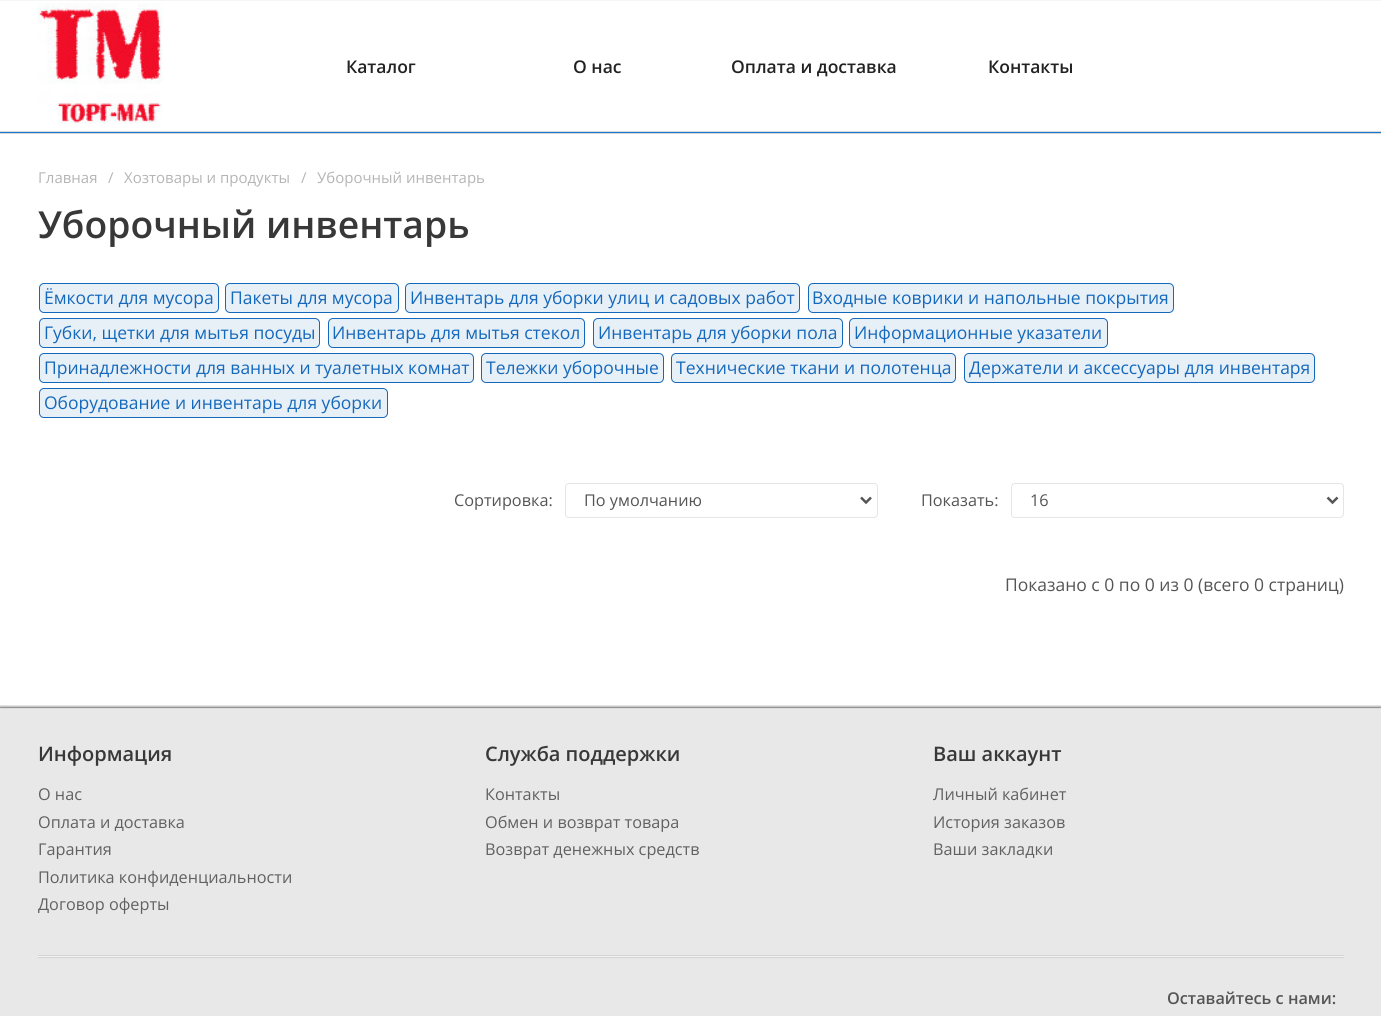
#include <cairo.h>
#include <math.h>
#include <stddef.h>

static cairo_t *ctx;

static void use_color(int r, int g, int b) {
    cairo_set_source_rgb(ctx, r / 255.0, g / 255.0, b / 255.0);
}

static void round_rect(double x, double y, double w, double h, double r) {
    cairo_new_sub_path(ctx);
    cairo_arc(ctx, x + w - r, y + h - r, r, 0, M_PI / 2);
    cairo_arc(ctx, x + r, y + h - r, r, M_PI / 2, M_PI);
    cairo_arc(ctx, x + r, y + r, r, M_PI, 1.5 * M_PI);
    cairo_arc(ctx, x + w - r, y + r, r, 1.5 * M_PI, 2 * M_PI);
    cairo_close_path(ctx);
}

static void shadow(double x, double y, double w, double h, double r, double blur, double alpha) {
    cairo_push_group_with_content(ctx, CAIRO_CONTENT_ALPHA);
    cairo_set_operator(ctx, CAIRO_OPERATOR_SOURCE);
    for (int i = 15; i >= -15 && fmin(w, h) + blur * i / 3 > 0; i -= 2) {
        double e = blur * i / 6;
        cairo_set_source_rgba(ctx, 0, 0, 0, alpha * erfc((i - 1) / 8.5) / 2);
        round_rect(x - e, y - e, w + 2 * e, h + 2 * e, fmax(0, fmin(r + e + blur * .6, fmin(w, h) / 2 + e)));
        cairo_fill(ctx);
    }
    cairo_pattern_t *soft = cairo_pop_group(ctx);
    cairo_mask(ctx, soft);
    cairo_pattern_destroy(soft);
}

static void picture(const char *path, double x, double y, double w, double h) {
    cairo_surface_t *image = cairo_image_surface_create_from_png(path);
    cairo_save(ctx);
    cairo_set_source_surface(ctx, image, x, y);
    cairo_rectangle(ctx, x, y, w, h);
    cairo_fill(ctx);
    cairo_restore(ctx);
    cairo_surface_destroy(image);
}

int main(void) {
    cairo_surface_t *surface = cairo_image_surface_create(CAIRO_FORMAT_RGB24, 1381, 1016);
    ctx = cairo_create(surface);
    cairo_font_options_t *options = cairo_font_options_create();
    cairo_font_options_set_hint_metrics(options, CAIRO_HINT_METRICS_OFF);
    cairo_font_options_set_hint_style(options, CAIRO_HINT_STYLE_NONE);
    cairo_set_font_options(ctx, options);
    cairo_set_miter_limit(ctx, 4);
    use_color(255, 255, 255);
    cairo_paint(ctx);
    use_color(246, 246, 246);
    cairo_rectangle(ctx, 0, 0, 1381, 1);
    cairo_fill(ctx);
    picture("img1.png", 37, 3, 126, 121);
    cairo_select_font_face(ctx, "Open Sans SemiBold", CAIRO_FONT_SLANT_NORMAL, CAIRO_FONT_WEIGHT_NORMAL);
    cairo_set_font_size(ctx, 17.5);
    use_color(34, 34, 34);
    cairo_move_to(ctx, 346, 73);
    cairo_show_text(ctx, "Каталог");
    cairo_move_to(ctx, 573, 73);
    cairo_show_text(ctx, "О нас");
    cairo_move_to(ctx, 731, 73);
    cairo_show_text(ctx, "Оплата и доставка");
    cairo_move_to(ctx, 988, 73);
    cairo_show_text(ctx, "Контакты");
    use_color(25, 118, 210);
    cairo_rectangle(ctx, 0, 132, 1381, 1);
    cairo_fill(ctx);
    use_color(217, 217, 217);
    cairo_rectangle(ctx, 0, 131, 1381, 1);
    cairo_fill(ctx);
    use_color(215, 215, 215);
    cairo_rectangle(ctx, 0, 133, 1381, 1);
    cairo_fill(ctx);
    cairo_select_font_face(ctx, "Open Sans", CAIRO_FONT_SLANT_NORMAL, CAIRO_FONT_WEIGHT_NORMAL);
    cairo_set_font_size(ctx, 15);
    use_color(182, 181, 181);
    cairo_move_to(ctx, 38, 183);
    cairo_show_text(ctx, "Главная");
    cairo_move_to(ctx, 108, 183);
    cairo_show_text(ctx, "/");
    cairo_move_to(ctx, 124, 183);
    cairo_show_text(ctx, "Хозтовары и продукты");
    cairo_move_to(ctx, 301, 183);
    cairo_show_text(ctx, "/");
    cairo_move_to(ctx, 317, 183);
    cairo_show_text(ctx, "Уборочный инвентарь");
    cairo_select_font_face(ctx, "Open Sans SemiBold", CAIRO_FONT_SLANT_NORMAL, CAIRO_FONT_WEIGHT_NORMAL);
    cairo_set_font_size(ctx, 37.25);
    use_color(56, 56, 56);
    cairo_move_to(ctx, 38, 238);
    cairo_show_text(ctx, "Уборочный инвентарь");
    use_color(231, 239, 247);
    round_rect(39.5, 283.5, 179, 29, 4.5);
    cairo_fill_preserve(ctx);
    use_color(21, 105, 188);
    cairo_set_line_width(ctx, 1);
    cairo_stroke(ctx);
    cairo_select_font_face(ctx, "Open Sans", CAIRO_FONT_SLANT_NORMAL, CAIRO_FONT_WEIGHT_NORMAL);
    cairo_set_font_size(ctx, 17.5);
    cairo_move_to(ctx, 44, 304);
    cairo_show_text(ctx, "Ёмкости для мусора");
    use_color(231, 239, 247);
    round_rect(225.5, 283.5, 173, 29, 4.5);
    cairo_fill_preserve(ctx);
    use_color(21, 105, 188);
    cairo_stroke(ctx);
    cairo_move_to(ctx, 230, 304);
    cairo_show_text(ctx, "Пакеты для мусора");
    use_color(231, 239, 247);
    round_rect(405.5, 283.5, 394, 29, 4.5);
    cairo_fill_preserve(ctx);
    use_color(21, 105, 188);
    cairo_stroke(ctx);
    cairo_move_to(ctx, 410, 304);
    cairo_show_text(ctx, "Инвентарь для уборки улиц и садовых работ");
    use_color(231, 239, 247);
    round_rect(808.5, 283.5, 365, 29, 4.5);
    cairo_fill_preserve(ctx);
    use_color(21, 105, 188);
    cairo_stroke(ctx);
    cairo_move_to(ctx, 812, 304);
    cairo_show_text(ctx, "Входные коврики и напольные покрытия");
    use_color(231, 239, 247);
    round_rect(39.5, 318.5, 280, 29, 4.5);
    cairo_fill_preserve(ctx);
    use_color(21, 105, 188);
    cairo_stroke(ctx);
    cairo_move_to(ctx, 44, 339);
    cairo_show_text(ctx, "Губки, щетки для мытья посуды");
    use_color(231, 239, 247);
    round_rect(328.5, 318.5, 256, 29, 4.5);
    cairo_fill_preserve(ctx);
    use_color(21, 105, 188);
    cairo_stroke(ctx);
    cairo_move_to(ctx, 332, 339);
    cairo_show_text(ctx, "Инвентарь для мытья стекол");
    use_color(231, 239, 247);
    round_rect(593.5, 318.5, 249, 29, 4.5);
    cairo_fill_preserve(ctx);
    use_color(21, 105, 188);
    cairo_stroke(ctx);
    cairo_move_to(ctx, 598, 339);
    cairo_show_text(ctx, "Инвентарь для уборки пола");
    use_color(231, 239, 247);
    round_rect(849.5, 318.5, 258, 29, 4.5);
    cairo_fill_preserve(ctx);
    use_color(21, 105, 188);
    cairo_stroke(ctx);
    cairo_move_to(ctx, 854, 339);
    cairo_show_text(ctx, "Информационные указатели");
    use_color(231, 239, 247);
    round_rect(39.5, 353.5, 434, 29, 4.5);
    cairo_fill_preserve(ctx);
    use_color(21, 105, 188);
    cairo_stroke(ctx);
    cairo_move_to(ctx, 44, 374);
    cairo_show_text(ctx, "Принадлежности для ванных и туалетных комнат");
    use_color(231, 239, 247);
    round_rect(481.5, 353.5, 182, 29, 4.5);
    cairo_fill_preserve(ctx);
    use_color(21, 105, 188);
    cairo_stroke(ctx);
    cairo_move_to(ctx, 486, 374);
    cairo_show_text(ctx, "Тележки уборочные");
    use_color(231, 239, 247);
    round_rect(671.5, 353.5, 284, 29, 4.5);
    cairo_fill_preserve(ctx);
    use_color(21, 105, 188);
    cairo_stroke(ctx);
    cairo_move_to(ctx, 676, 374);
    cairo_show_text(ctx, "Технические ткани и полотенца");
    use_color(231, 239, 247);
    round_rect(964.5, 353.5, 350, 29, 4.5);
    cairo_fill_preserve(ctx);
    use_color(21, 105, 188);
    cairo_stroke(ctx);
    cairo_move_to(ctx, 969, 374);
    cairo_show_text(ctx, "Держатели и аксессуары для инвентаря");
    use_color(231, 239, 247);
    round_rect(39.5, 388.5, 348, 29, 4.5);
    cairo_fill_preserve(ctx);
    use_color(21, 105, 188);
    cairo_stroke(ctx);
    cairo_move_to(ctx, 44, 409);
    cairo_show_text(ctx, "Оборудование и инвентарь для уборки");
    use_color(0, 0, 0);
    shadow(0, 708, 1381, 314, 0, 2, 1);
    use_color(255, 255, 255);
    cairo_rectangle(ctx, 0, 703, 1381, 2);
    cairo_fill(ctx);
    cairo_set_font_size(ctx, 16.25);
    use_color(85, 85, 85);
    cairo_move_to(ctx, 454, 506);
    cairo_show_text(ctx, "Сортировка:");
    round_rect(565.5, 483.5, 312, 34, 3.5);
    use_color(229, 229, 229);
    cairo_stroke(ctx);
    cairo_new_path(ctx);
    cairo_move_to(ctx, 861, 497.5);
    cairo_line_to(ctx, 866, 502.5);
    cairo_line_to(ctx, 871, 497.5);
    use_color(85, 85, 85);
    cairo_set_line_width(ctx, 2.5);
    cairo_stroke(ctx);
    cairo_move_to(ctx, 584, 506);
    cairo_show_text(ctx, "По умолчанию");
    cairo_move_to(ctx, 921, 506);
    cairo_show_text(ctx, "Показать:");
    round_rect(1011.5, 483.5, 332, 34, 3.5);
    use_color(229, 229, 229);
    cairo_set_line_width(ctx, 1);
    cairo_stroke(ctx);
    cairo_new_path(ctx);
    cairo_move_to(ctx, 1327.5, 497.5);
    cairo_line_to(ctx, 1332.5, 502.5);
    cairo_line_to(ctx, 1337.5, 497.5);
    use_color(85, 85, 85);
    cairo_set_line_width(ctx, 2.5);
    cairo_stroke(ctx);
    cairo_move_to(ctx, 1030, 506);
    cairo_show_text(ctx, "16");
    cairo_set_font_size(ctx, 17.5);
    cairo_move_to(ctx, 1005, 591);
    cairo_show_text(ctx, "Показано с 0 по 0 из 0 (всего 0 страниц)");
    use_color(232, 232, 232);
    cairo_rectangle(ctx, 0, 709, 1381, 307);
    cairo_fill(ctx);
    use_color(221, 221, 221);
    cairo_rectangle(ctx, 0, 708, 1381, 1);
    cairo_fill(ctx);
    cairo_select_font_face(ctx, "Open Sans SemiBold", CAIRO_FONT_SLANT_NORMAL, CAIRO_FONT_WEIGHT_NORMAL);
    cairo_set_font_size(ctx, 20);
    use_color(56, 56, 56);
    cairo_move_to(ctx, 38, 761);
    cairo_show_text(ctx, "Информация");
    cairo_select_font_face(ctx, "Open Sans", CAIRO_FONT_SLANT_NORMAL, CAIRO_FONT_WEIGHT_NORMAL);
    cairo_set_font_size(ctx, 16.25);
    use_color(97, 97, 97);
    cairo_move_to(ctx, 38, 800);
    cairo_show_text(ctx, "О нас");
    cairo_move_to(ctx, 38, 828);
    cairo_show_text(ctx, "Оплата и доставка");
    cairo_move_to(ctx, 38, 855);
    cairo_show_text(ctx, "Гарантия");
    cairo_move_to(ctx, 38, 883);
    cairo_show_text(ctx, "Политика конфиденциальности");
    cairo_move_to(ctx, 38, 910);
    cairo_show_text(ctx, "Договор оферты");
    cairo_select_font_face(ctx, "Open Sans SemiBold", CAIRO_FONT_SLANT_NORMAL, CAIRO_FONT_WEIGHT_NORMAL);
    cairo_set_font_size(ctx, 20);
    use_color(56, 56, 56);
    cairo_move_to(ctx, 485, 761);
    cairo_show_text(ctx, "Служба поддержки");
    cairo_select_font_face(ctx, "Open Sans", CAIRO_FONT_SLANT_NORMAL, CAIRO_FONT_WEIGHT_NORMAL);
    cairo_set_font_size(ctx, 16.25);
    use_color(97, 97, 97);
    cairo_move_to(ctx, 485, 800);
    cairo_show_text(ctx, "Контакты");
    cairo_move_to(ctx, 485, 828);
    cairo_show_text(ctx, "Обмен и возврат товара");
    cairo_move_to(ctx, 485, 855);
    cairo_show_text(ctx, "Возврат денежных средств");
    cairo_select_font_face(ctx, "Open Sans SemiBold", CAIRO_FONT_SLANT_NORMAL, CAIRO_FONT_WEIGHT_NORMAL);
    cairo_set_font_size(ctx, 20);
    use_color(56, 56, 56);
    cairo_move_to(ctx, 933, 761);
    cairo_show_text(ctx, "Ваш аккаунт");
    cairo_select_font_face(ctx, "Open Sans", CAIRO_FONT_SLANT_NORMAL, CAIRO_FONT_WEIGHT_NORMAL);
    cairo_set_font_size(ctx, 16.25);
    use_color(97, 97, 97);
    cairo_move_to(ctx, 933, 800);
    cairo_show_text(ctx, "Личный кабинет");
    cairo_move_to(ctx, 933, 828);
    cairo_show_text(ctx, "История заказов");
    cairo_move_to(ctx, 933, 855);
    cairo_show_text(ctx, "Ваши закладки");
    use_color(210, 210, 210);
    cairo_rectangle(ctx, 38, 955, 1306, 3);
    cairo_fill(ctx);
    use_color(245, 245, 245);
    cairo_rectangle(ctx, 38, 956, 1306, 1);
    cairo_fill(ctx);
    cairo_select_font_face(ctx, "Open Sans SemiBold", CAIRO_FONT_SLANT_NORMAL, CAIRO_FONT_WEIGHT_NORMAL);
    use_color(85, 85, 85);
    cairo_move_to(ctx, 1167, 1004);
    cairo_show_text(ctx, "Оставайтесь с нами:");
    cairo_surface_write_to_png(surface, "result.png");
    cairo_font_options_destroy(options);
    cairo_destroy(ctx);
    cairo_surface_destroy(surface);
    return 0;
}
